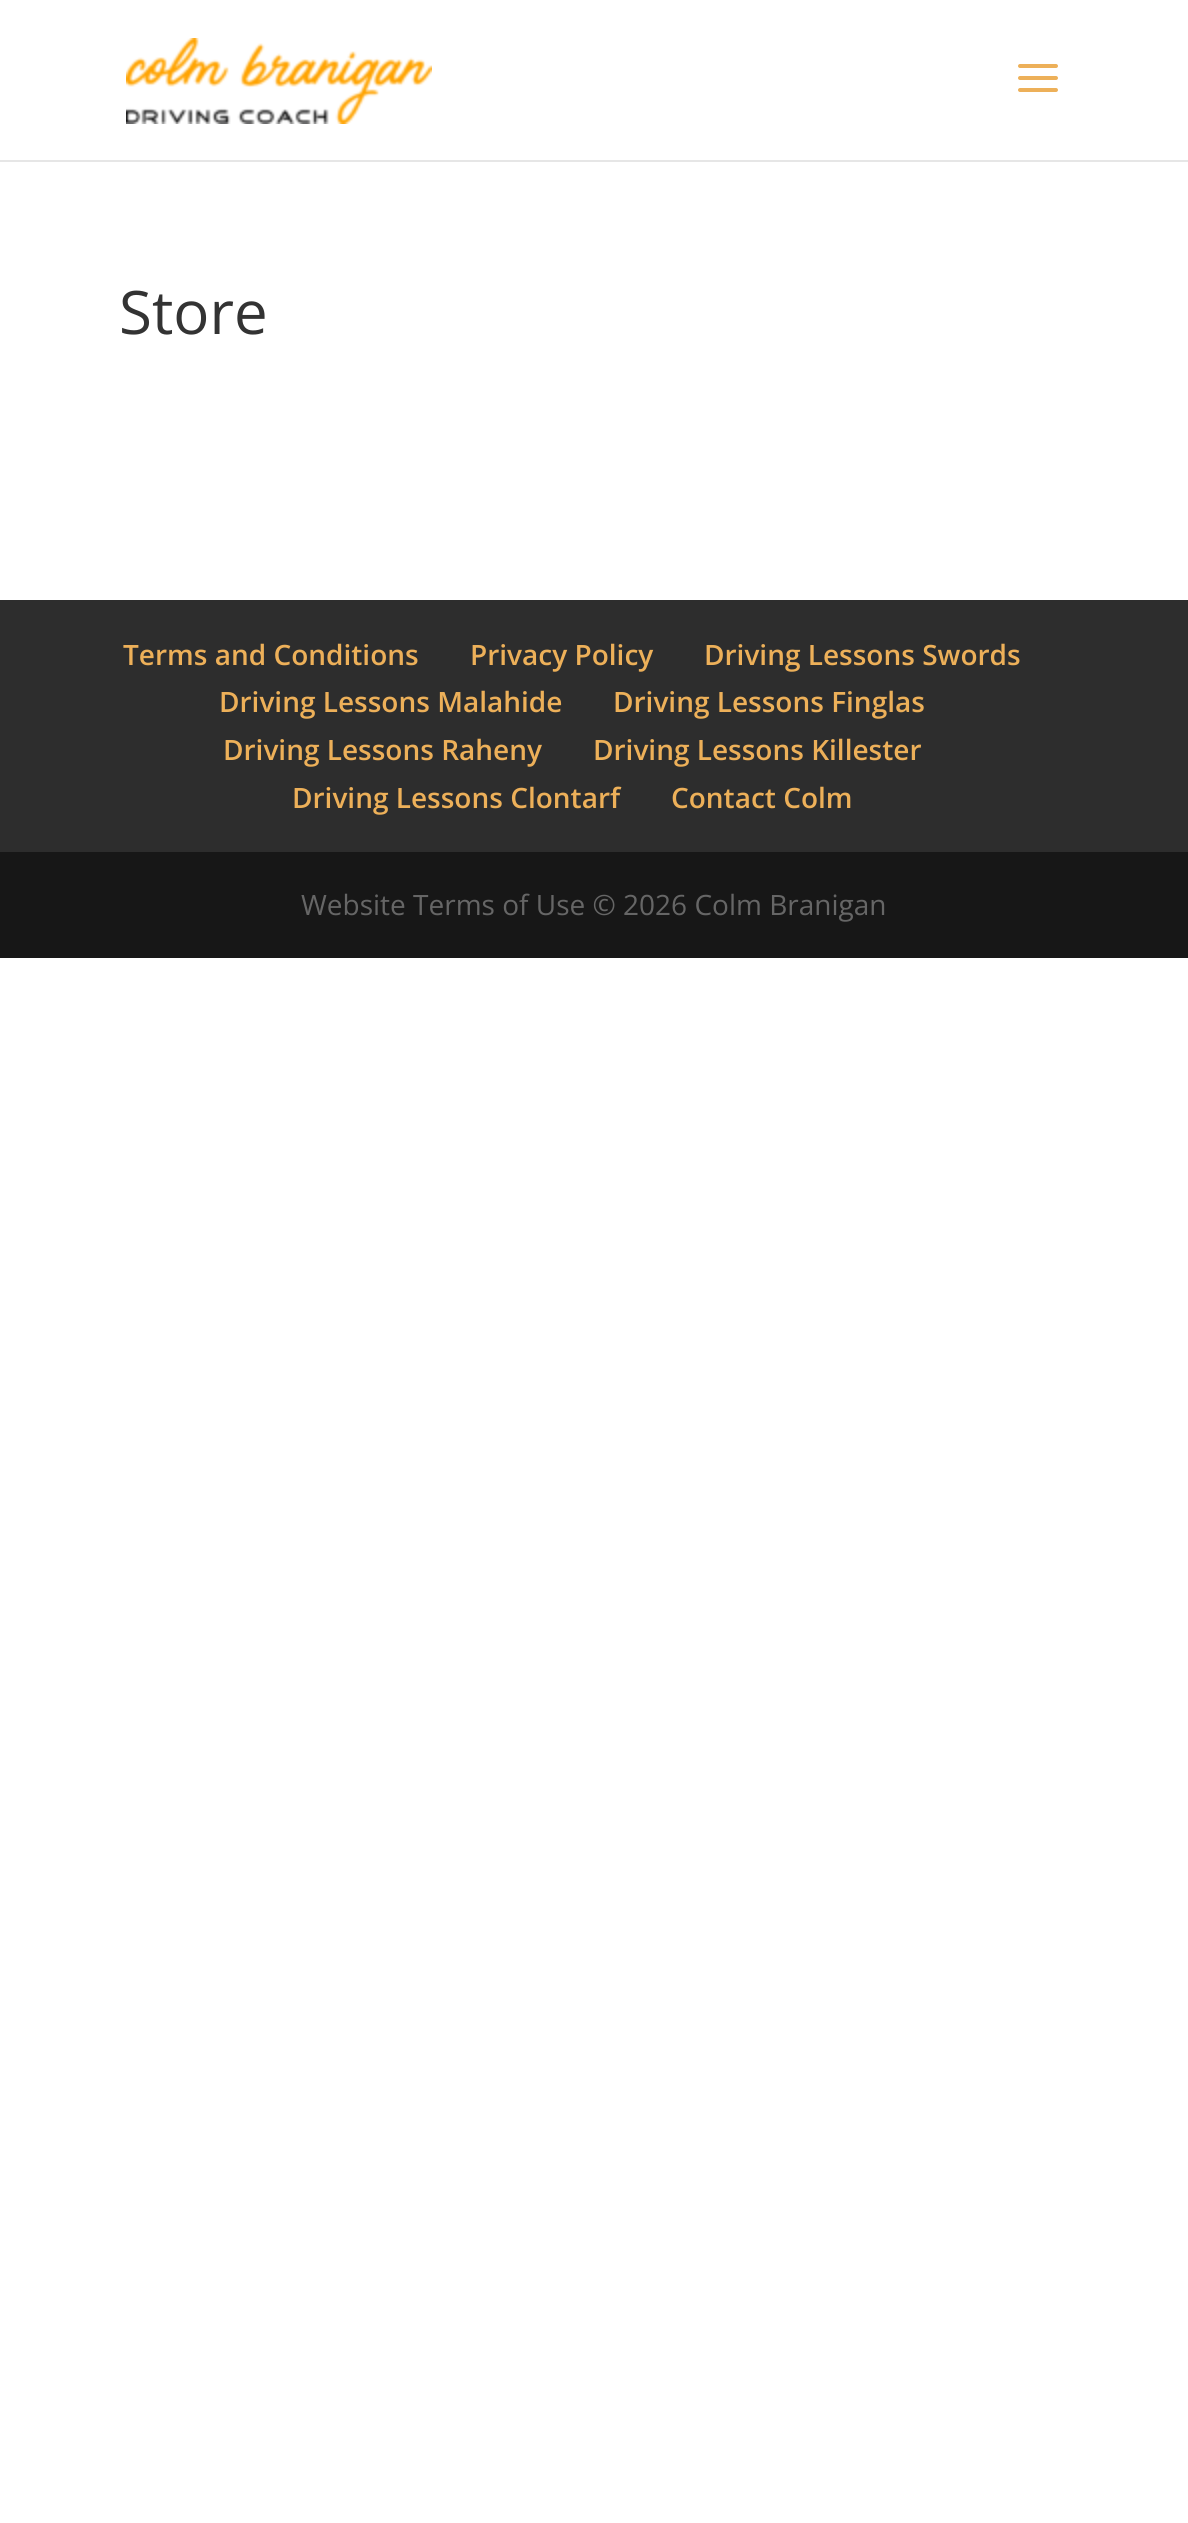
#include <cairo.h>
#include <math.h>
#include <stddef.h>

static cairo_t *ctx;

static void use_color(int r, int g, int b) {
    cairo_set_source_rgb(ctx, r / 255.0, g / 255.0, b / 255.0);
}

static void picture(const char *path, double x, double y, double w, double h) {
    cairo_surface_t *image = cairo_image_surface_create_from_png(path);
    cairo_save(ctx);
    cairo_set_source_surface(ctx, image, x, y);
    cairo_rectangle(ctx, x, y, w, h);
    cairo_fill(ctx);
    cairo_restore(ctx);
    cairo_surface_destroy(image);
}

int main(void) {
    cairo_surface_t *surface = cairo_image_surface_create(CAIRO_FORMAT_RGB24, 1188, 2523);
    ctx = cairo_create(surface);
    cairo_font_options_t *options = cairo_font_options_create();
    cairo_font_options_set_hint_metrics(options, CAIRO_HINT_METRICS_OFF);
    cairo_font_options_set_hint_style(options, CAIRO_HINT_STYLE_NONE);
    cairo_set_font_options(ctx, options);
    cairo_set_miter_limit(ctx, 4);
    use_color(255, 255, 255);
    cairo_paint(ctx);
    use_color(230, 230, 230);
    cairo_rectangle(ctx, 0, 160, 1188, 2);
    cairo_fill(ctx);
    picture("img1.png", 126, 38, 306, 86);
    picture("img2.png", 1018, 64, 40, 28);
    cairo_select_font_face(ctx, "Open Sans", CAIRO_FONT_SLANT_NORMAL, CAIRO_FONT_WEIGHT_NORMAL);
    cairo_set_font_size(ctx, 60);
    use_color(51, 51, 51);
    cairo_move_to(ctx, 119, 334);
    cairo_show_text(ctx, "Store");
    use_color(45, 45, 45);
    cairo_rectangle(ctx, 0, 600, 1188, 252);
    cairo_fill(ctx);
    cairo_select_font_face(ctx, "Open Sans SemiBold", CAIRO_FONT_SLANT_NORMAL, CAIRO_FONT_WEIGHT_NORMAL);
    cairo_set_font_size(ctx, 28);
    use_color(237, 176, 89);
    cairo_move_to(ctx, 123, 665);
    cairo_show_text(ctx, "Terms and Conditions");
    cairo_move_to(ctx, 470, 665);
    cairo_show_text(ctx, "Privacy Policy");
    cairo_move_to(ctx, 704, 665);
    cairo_show_text(ctx, "Driving Lessons Swords");
    cairo_move_to(ctx, 219, 712);
    cairo_show_text(ctx, "Driving Lessons Malahide");
    cairo_move_to(ctx, 613, 712);
    cairo_show_text(ctx, "Driving Lessons Finglas");
    cairo_move_to(ctx, 223, 760);
    cairo_show_text(ctx, "Driving Lessons Raheny");
    cairo_move_to(ctx, 593, 760);
    cairo_show_text(ctx, "Driving Lessons Killester");
    cairo_move_to(ctx, 292, 808);
    cairo_show_text(ctx, "Driving Lessons Clontarf");
    cairo_move_to(ctx, 671, 808);
    cairo_show_text(ctx, "Contact Colm");
    use_color(23, 23, 23);
    cairo_rectangle(ctx, 0, 852, 1188, 106);
    cairo_fill(ctx);
    cairo_select_font_face(ctx, "Open Sans", CAIRO_FONT_SLANT_NORMAL, CAIRO_FONT_WEIGHT_NORMAL);
    use_color(102, 102, 102);
    cairo_move_to(ctx, 301, 915);
    cairo_show_text(ctx, "Website Terms of Use © 2026 Colm Branigan");
    cairo_surface_write_to_png(surface, "result.png");
    cairo_font_options_destroy(options);
    cairo_destroy(ctx);
    cairo_surface_destroy(surface);
    return 0;
}
